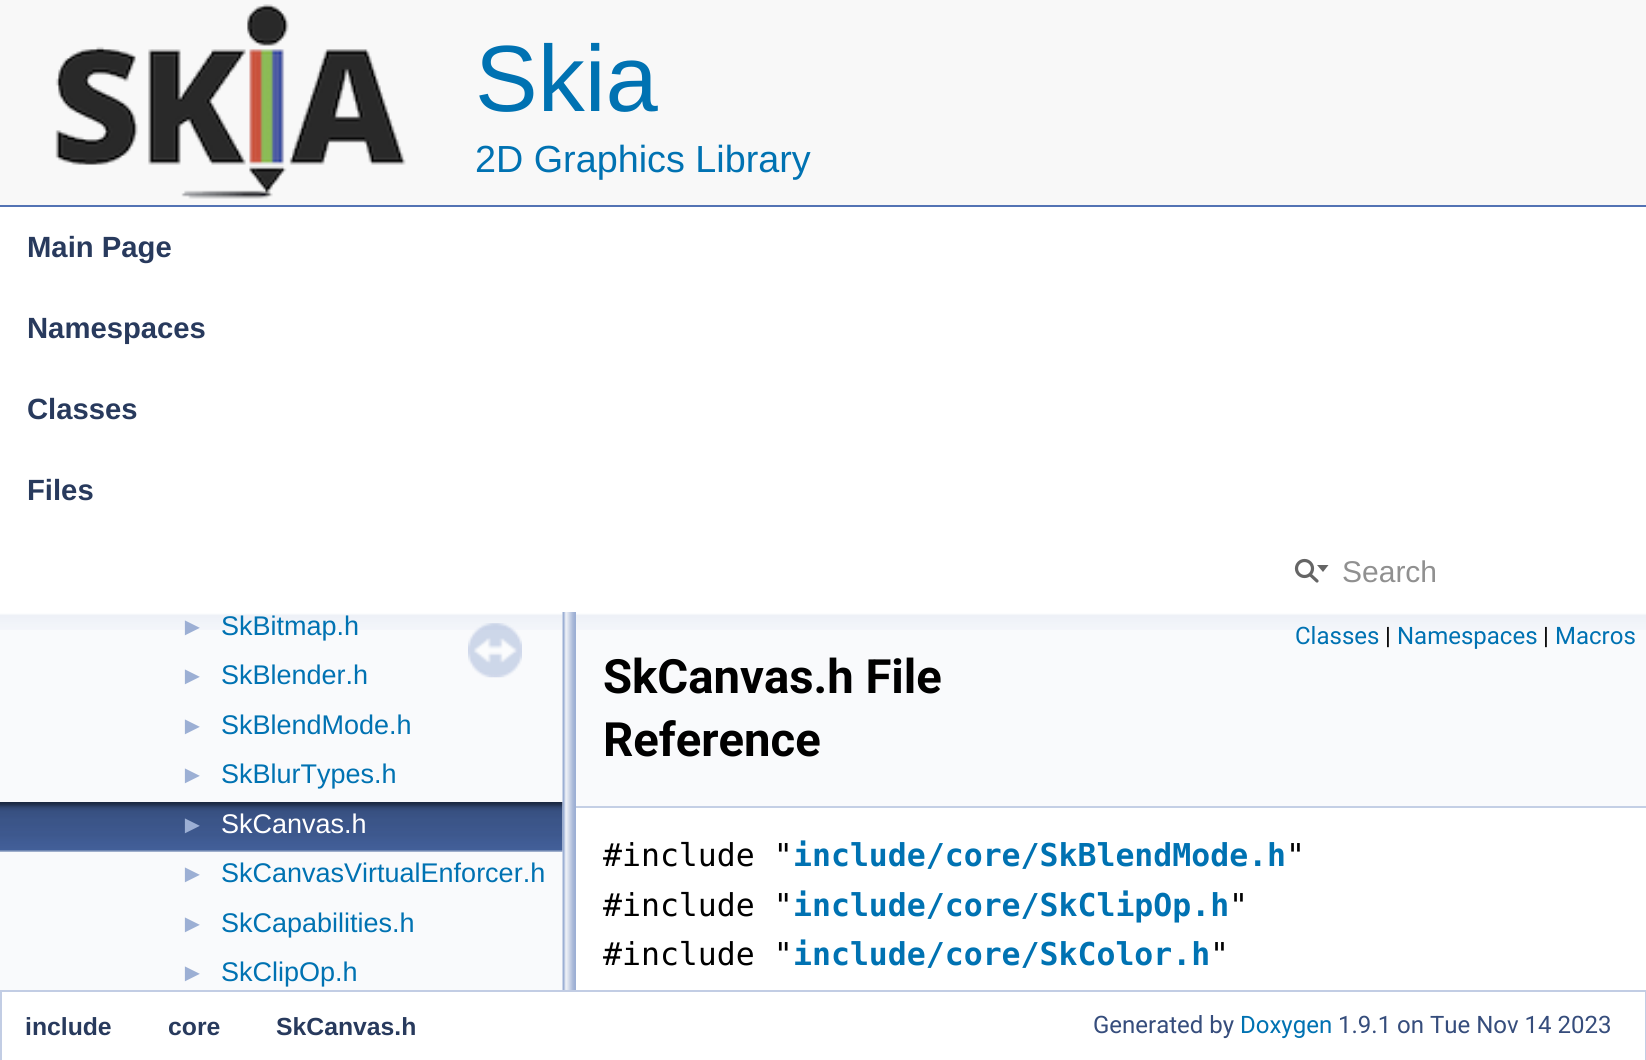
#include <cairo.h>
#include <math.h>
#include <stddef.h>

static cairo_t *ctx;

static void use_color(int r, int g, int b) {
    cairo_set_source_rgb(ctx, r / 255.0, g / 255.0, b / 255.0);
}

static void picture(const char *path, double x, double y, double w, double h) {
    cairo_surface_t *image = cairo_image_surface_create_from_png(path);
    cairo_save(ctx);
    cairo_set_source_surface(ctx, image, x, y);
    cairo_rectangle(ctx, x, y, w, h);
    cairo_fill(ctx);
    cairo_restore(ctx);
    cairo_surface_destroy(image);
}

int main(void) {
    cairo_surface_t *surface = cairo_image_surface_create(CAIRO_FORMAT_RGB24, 1646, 1060);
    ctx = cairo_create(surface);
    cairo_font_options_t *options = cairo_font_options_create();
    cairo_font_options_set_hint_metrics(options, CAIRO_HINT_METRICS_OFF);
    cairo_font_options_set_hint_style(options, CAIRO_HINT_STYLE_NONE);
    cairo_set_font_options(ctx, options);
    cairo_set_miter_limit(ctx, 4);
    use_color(255, 255, 255);
    cairo_paint(ctx);
    use_color(248, 248, 248);
    cairo_rectangle(ctx, 0, 0, 1646, 205);
    cairo_fill(ctx);
    use_color(83, 115, 180);
    cairo_rectangle(ctx, 0, 205, 1646, 2);
    cairo_fill(ctx);
    picture("img1.png", 55, 4, 351, 195);
    cairo_select_font_face(ctx, "Liberation Sans", CAIRO_FONT_SLANT_NORMAL, CAIRO_FONT_WEIGHT_NORMAL);
    cairo_set_font_size(ctx, 94);
    use_color(0, 114, 178);
    cairo_move_to(ctx, 475, 111);
    cairo_show_text(ctx, "Skia");
    cairo_set_font_size(ctx, 37.75);
    cairo_move_to(ctx, 475, 172);
    cairo_show_text(ctx, "2D Graphics Library");
    cairo_select_font_face(ctx, "Liberation Sans", CAIRO_FONT_SLANT_NORMAL, CAIRO_FONT_WEIGHT_BOLD);
    cairo_set_font_size(ctx, 29.25);
    use_color(40, 58, 93);
    cairo_move_to(ctx, 27, 257);
    cairo_show_text(ctx, "Main Page");
    cairo_move_to(ctx, 27, 338);
    cairo_show_text(ctx, "Namespaces");
    cairo_move_to(ctx, 27, 419);
    cairo_show_text(ctx, "Classes");
    cairo_move_to(ctx, 27, 500);
    cairo_show_text(ctx, "Files");
    cairo_new_path(ctx);
    cairo_arc(ctx, 1304.5, 568.5, 8, 0, 2 * M_PI);
    use_color(101, 101, 101);
    cairo_set_line_width(ctx, 3.2);
    cairo_stroke(ctx);
    cairo_new_path(ctx);
    cairo_move_to(ctx, 1317, 565);
    cairo_line_to(ctx, 1323, 572);
    cairo_line_to(ctx, 1328.5, 565);
    cairo_close_path(ctx);
    cairo_fill(ctx);
    cairo_new_path(ctx);
    cairo_move_to(ctx, 1310.5, 575);
    cairo_line_to(ctx, 1317, 581);
    cairo_set_line_cap(ctx, CAIRO_LINE_CAP_ROUND);
    cairo_stroke(ctx);
    cairo_select_font_face(ctx, "Liberation Sans", CAIRO_FONT_SLANT_NORMAL, CAIRO_FONT_WEIGHT_NORMAL);
    cairo_set_font_size(ctx, 30);
    use_color(144, 144, 144);
    cairo_move_to(ctx, 1342, 582);
    cairo_show_text(ctx, "Search");
    use_color(249, 250, 252);
    cairo_rectangle(ctx, 0, 612, 563, 378);
    cairo_fill(ctx);
    picture("img2.png", 0, 612, 563, 18);
    cairo_set_font_size(ctx, 25);
    use_color(156, 175, 212);
    cairo_move_to(ctx, 180, 635);
    cairo_show_text(ctx, "►");
    cairo_set_font_size(ctx, 27);
    use_color(0, 114, 178);
    cairo_move_to(ctx, 221, 635);
    cairo_show_text(ctx, "SkBitmap.h");
    cairo_set_font_size(ctx, 25);
    use_color(156, 175, 212);
    cairo_move_to(ctx, 180, 684);
    cairo_show_text(ctx, "►");
    cairo_set_font_size(ctx, 27);
    use_color(0, 114, 178);
    cairo_move_to(ctx, 221, 684);
    cairo_show_text(ctx, "SkBlender.h");
    cairo_set_font_size(ctx, 25);
    use_color(156, 175, 212);
    cairo_move_to(ctx, 180, 734);
    cairo_show_text(ctx, "►");
    cairo_set_font_size(ctx, 27);
    use_color(0, 114, 178);
    cairo_move_to(ctx, 221, 734);
    cairo_show_text(ctx, "SkBlendMode.h");
    cairo_set_font_size(ctx, 25);
    use_color(156, 175, 212);
    cairo_move_to(ctx, 180, 783);
    cairo_show_text(ctx, "►");
    cairo_set_font_size(ctx, 27);
    use_color(0, 114, 178);
    cairo_move_to(ctx, 221, 783);
    cairo_show_text(ctx, "SkBlurTypes.h");
    picture("img3.png", 0, 802, 563, 50);
    cairo_set_font_size(ctx, 25);
    use_color(156, 175, 212);
    cairo_move_to(ctx, 180, 833);
    cairo_show_text(ctx, "►");
    cairo_set_font_size(ctx, 27);
    use_color(255, 255, 255);
    cairo_move_to(ctx, 221, 833);
    cairo_show_text(ctx, "SkCanvas.h");
    cairo_set_font_size(ctx, 25);
    use_color(156, 175, 212);
    cairo_move_to(ctx, 180, 882);
    cairo_show_text(ctx, "►");
    cairo_set_font_size(ctx, 27);
    use_color(0, 114, 178);
    cairo_move_to(ctx, 221, 882);
    cairo_show_text(ctx, "SkCanvasVirtualEnforcer.h");
    cairo_set_font_size(ctx, 25);
    use_color(156, 175, 212);
    cairo_move_to(ctx, 180, 932);
    cairo_show_text(ctx, "►");
    cairo_set_font_size(ctx, 27);
    use_color(0, 114, 178);
    cairo_move_to(ctx, 221, 932);
    cairo_show_text(ctx, "SkCapabilities.h");
    cairo_set_font_size(ctx, 25);
    use_color(156, 175, 212);
    cairo_move_to(ctx, 180, 981);
    cairo_show_text(ctx, "►");
    cairo_set_font_size(ctx, 27);
    use_color(0, 114, 178);
    cairo_move_to(ctx, 221, 981);
    cairo_show_text(ctx, "SkClipOp.h");
    picture("img4.png", 468, 623, 54, 55);
    picture("img5.png", 562, 612, 14, 378);
    use_color(249, 250, 252);
    cairo_rectangle(ctx, 576, 630, 1070, 176);
    cairo_fill(ctx);
    picture("img6.png", 576, 612, 1070, 18);
    use_color(196, 207, 229);
    cairo_rectangle(ctx, 576, 806, 1070, 2);
    cairo_fill(ctx);
    cairo_select_font_face(ctx, "Roboto", CAIRO_FONT_SLANT_NORMAL, CAIRO_FONT_WEIGHT_NORMAL);
    cairo_set_font_size(ctx, 24);
    use_color(0, 114, 178);
    cairo_move_to(ctx, 1295, 644);
    cairo_show_text(ctx, "Classes");
    use_color(0, 0, 0);
    cairo_move_to(ctx, 1385, 644);
    cairo_show_text(ctx, "|");
    use_color(0, 114, 178);
    cairo_move_to(ctx, 1397, 644);
    cairo_show_text(ctx, "Namespaces");
    use_color(0, 0, 0);
    cairo_move_to(ctx, 1543, 644);
    cairo_show_text(ctx, "|");
    use_color(0, 114, 178);
    cairo_move_to(ctx, 1555, 644);
    cairo_show_text(ctx, "Macros");
    cairo_select_font_face(ctx, "Roboto", CAIRO_FONT_SLANT_NORMAL, CAIRO_FONT_WEIGHT_BOLD);
    cairo_set_font_size(ctx, 47.25);
    use_color(0, 0, 0);
    cairo_move_to(ctx, 603, 693);
    cairo_show_text(ctx, "SkCanvas.h File");
    cairo_move_to(ctx, 603, 756);
    cairo_show_text(ctx, "Reference");
    cairo_select_font_face(ctx, "DejaVu Sans Mono", CAIRO_FONT_SLANT_NORMAL, CAIRO_FONT_WEIGHT_NORMAL);
    cairo_set_font_size(ctx, 31.5);
    cairo_move_to(ctx, 603, 866);
    cairo_show_text(ctx, "#include \"");
    cairo_select_font_face(ctx, "DejaVu Sans Mono", CAIRO_FONT_SLANT_NORMAL, CAIRO_FONT_WEIGHT_BOLD);
    use_color(0, 114, 178);
    cairo_move_to(ctx, 793, 866);
    cairo_show_text(ctx, "include/core/SkBlendMode.h");
    cairo_select_font_face(ctx, "DejaVu Sans Mono", CAIRO_FONT_SLANT_NORMAL, CAIRO_FONT_WEIGHT_NORMAL);
    use_color(0, 0, 0);
    cairo_move_to(ctx, 1286, 866);
    cairo_show_text(ctx, "\"");
    cairo_move_to(ctx, 603, 916);
    cairo_show_text(ctx, "#include \"");
    cairo_select_font_face(ctx, "DejaVu Sans Mono", CAIRO_FONT_SLANT_NORMAL, CAIRO_FONT_WEIGHT_BOLD);
    use_color(0, 114, 178);
    cairo_move_to(ctx, 793, 916);
    cairo_show_text(ctx, "include/core/SkClipOp.h");
    cairo_select_font_face(ctx, "DejaVu Sans Mono", CAIRO_FONT_SLANT_NORMAL, CAIRO_FONT_WEIGHT_NORMAL);
    use_color(0, 0, 0);
    cairo_move_to(ctx, 1229, 916);
    cairo_show_text(ctx, "\"");
    cairo_move_to(ctx, 603, 965);
    cairo_show_text(ctx, "#include \"");
    cairo_select_font_face(ctx, "DejaVu Sans Mono", CAIRO_FONT_SLANT_NORMAL, CAIRO_FONT_WEIGHT_BOLD);
    use_color(0, 114, 178);
    cairo_move_to(ctx, 793, 965);
    cairo_show_text(ctx, "include/core/SkColor.h");
    cairo_select_font_face(ctx, "DejaVu Sans Mono", CAIRO_FONT_SLANT_NORMAL, CAIRO_FONT_WEIGHT_NORMAL);
    use_color(0, 0, 0);
    cairo_move_to(ctx, 1210, 965);
    cairo_show_text(ctx, "\"");
    cairo_rectangle(ctx, 1, 991, 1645, 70);
    use_color(194, 205, 228);
    cairo_set_line_width(ctx, 2);
    cairo_set_line_cap(ctx, CAIRO_LINE_CAP_BUTT);
    cairo_stroke(ctx);
    cairo_select_font_face(ctx, "Liberation Sans", CAIRO_FONT_SLANT_NORMAL, CAIRO_FONT_WEIGHT_BOLD);
    cairo_set_font_size(ctx, 24.75);
    use_color(40, 58, 93);
    cairo_move_to(ctx, 25, 1035);
    cairo_show_text(ctx, "include");
    cairo_move_to(ctx, 168, 1035);
    cairo_show_text(ctx, "core");
    cairo_move_to(ctx, 276, 1035);
    cairo_show_text(ctx, "SkCanvas.h");
    cairo_select_font_face(ctx, "Roboto", CAIRO_FONT_SLANT_NORMAL, CAIRO_FONT_WEIGHT_NORMAL);
    cairo_set_font_size(ctx, 24);
    use_color(54, 77, 124);
    cairo_move_to(ctx, 1093, 1033);
    cairo_show_text(ctx, "Generated by");
    use_color(0, 114, 178);
    cairo_move_to(ctx, 1240, 1033);
    cairo_show_text(ctx, "Doxygen");
    use_color(54, 77, 124);
    cairo_move_to(ctx, 1338, 1033);
    cairo_show_text(ctx, "1.9.1 on Tue Nov 14 2023");
    cairo_surface_write_to_png(surface, "result.png");
    cairo_font_options_destroy(options);
    cairo_destroy(ctx);
    cairo_surface_destroy(surface);
    return 0;
}
